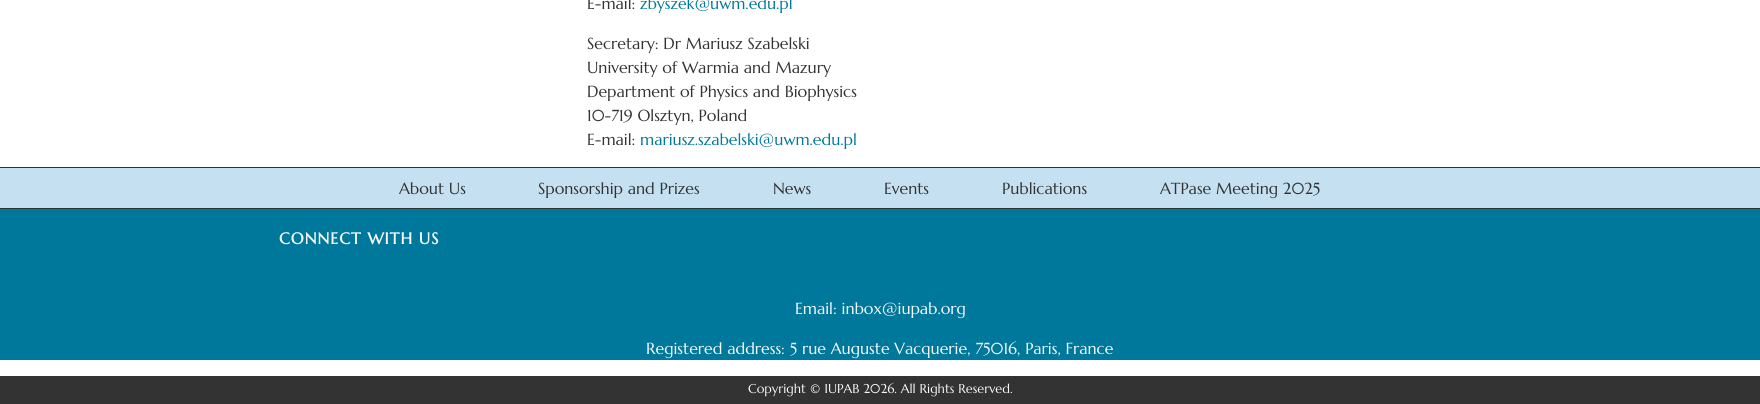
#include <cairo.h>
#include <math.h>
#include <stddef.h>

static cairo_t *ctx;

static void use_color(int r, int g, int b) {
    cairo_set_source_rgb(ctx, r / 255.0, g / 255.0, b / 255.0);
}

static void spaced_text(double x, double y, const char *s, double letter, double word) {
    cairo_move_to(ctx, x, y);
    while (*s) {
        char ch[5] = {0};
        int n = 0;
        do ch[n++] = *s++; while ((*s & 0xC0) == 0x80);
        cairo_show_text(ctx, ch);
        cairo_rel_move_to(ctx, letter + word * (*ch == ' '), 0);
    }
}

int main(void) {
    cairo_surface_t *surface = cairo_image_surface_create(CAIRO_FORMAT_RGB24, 1760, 404);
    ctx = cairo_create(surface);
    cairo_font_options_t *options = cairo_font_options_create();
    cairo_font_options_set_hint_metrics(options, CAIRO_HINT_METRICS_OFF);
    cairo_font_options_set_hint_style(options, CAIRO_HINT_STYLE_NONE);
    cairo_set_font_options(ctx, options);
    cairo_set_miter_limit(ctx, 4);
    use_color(255, 255, 255);
    cairo_paint(ctx);
    cairo_select_font_face(ctx, "Marcellus", CAIRO_FONT_SLANT_NORMAL, CAIRO_FONT_WEIGHT_NORMAL);
    cairo_set_font_size(ctx, 16);
    use_color(51, 51, 51);
    cairo_move_to(ctx, 587, 9);
    cairo_show_text(ctx, "E-mail:");
    use_color(0, 120, 156);
    cairo_move_to(ctx, 640, 9);
    cairo_show_text(ctx, "zbyszek@uwm.edu.pl");
    use_color(51, 51, 51);
    cairo_move_to(ctx, 587, 49);
    cairo_show_text(ctx, "Secretary: Dr Mariusz Szabelski");
    cairo_move_to(ctx, 587, 73);
    cairo_show_text(ctx, "University of Warmia and Mazury");
    cairo_move_to(ctx, 587, 97);
    cairo_show_text(ctx, "Department of Physics and Biophysics");
    cairo_move_to(ctx, 587, 121);
    cairo_show_text(ctx, "10-719 Olsztyn, Poland");
    cairo_move_to(ctx, 587, 145);
    cairo_show_text(ctx, "E-mail:");
    use_color(0, 120, 156);
    cairo_move_to(ctx, 640, 145);
    cairo_show_text(ctx, "mariusz.szabelski@uwm.edu.pl");
    use_color(197, 224, 240);
    cairo_rectangle(ctx, 0, 168, 1760, 40);
    cairo_fill(ctx);
    use_color(51, 51, 51);
    cairo_rectangle(ctx, 0, 167, 1760, 1);
    cairo_fill(ctx);
    cairo_rectangle(ctx, 0, 208, 1760, 1);
    cairo_fill(ctx);
    cairo_move_to(ctx, 399, 194);
    cairo_show_text(ctx, "About Us");
    cairo_move_to(ctx, 538, 194);
    cairo_show_text(ctx, "Sponsorship and Prizes");
    cairo_move_to(ctx, 773, 194);
    cairo_show_text(ctx, "News");
    cairo_move_to(ctx, 884, 194);
    cairo_show_text(ctx, "Events");
    cairo_move_to(ctx, 1002, 194);
    cairo_show_text(ctx, "Publications");
    cairo_move_to(ctx, 1160, 194);
    cairo_show_text(ctx, "ATPase Meeting 2025");
    use_color(0, 120, 156);
    cairo_rectangle(ctx, 0, 209, 1760, 151);
    cairo_fill(ctx);
    cairo_select_font_face(ctx, "Marcellus", CAIRO_FONT_SLANT_NORMAL, CAIRO_FONT_WEIGHT_BOLD);
    use_color(248, 249, 250);
    spaced_text(279, 244, "CONNECT WITH US", 1, 0);
    cairo_select_font_face(ctx, "Marcellus", CAIRO_FONT_SLANT_NORMAL, CAIRO_FONT_WEIGHT_NORMAL);
    cairo_move_to(ctx, 795, 314);
    cairo_show_text(ctx, "Email: inbox@iupab.org");
    cairo_move_to(ctx, 646, 354);
    cairo_show_text(ctx, "Registered address: 5 rue Auguste Vacquerie, 75016, Paris, France");
    use_color(51, 51, 51);
    cairo_rectangle(ctx, 0, 376, 1760, 28);
    cairo_fill(ctx);
    cairo_set_font_size(ctx, 12.8);
    use_color(248, 249, 250);
    cairo_move_to(ctx, 748, 393);
    cairo_show_text(ctx, "Copyright © IUPAB 2026. All Rights Reserved.");
    cairo_surface_write_to_png(surface, "result.png");
    cairo_font_options_destroy(options);
    cairo_destroy(ctx);
    cairo_surface_destroy(surface);
    return 0;
}
